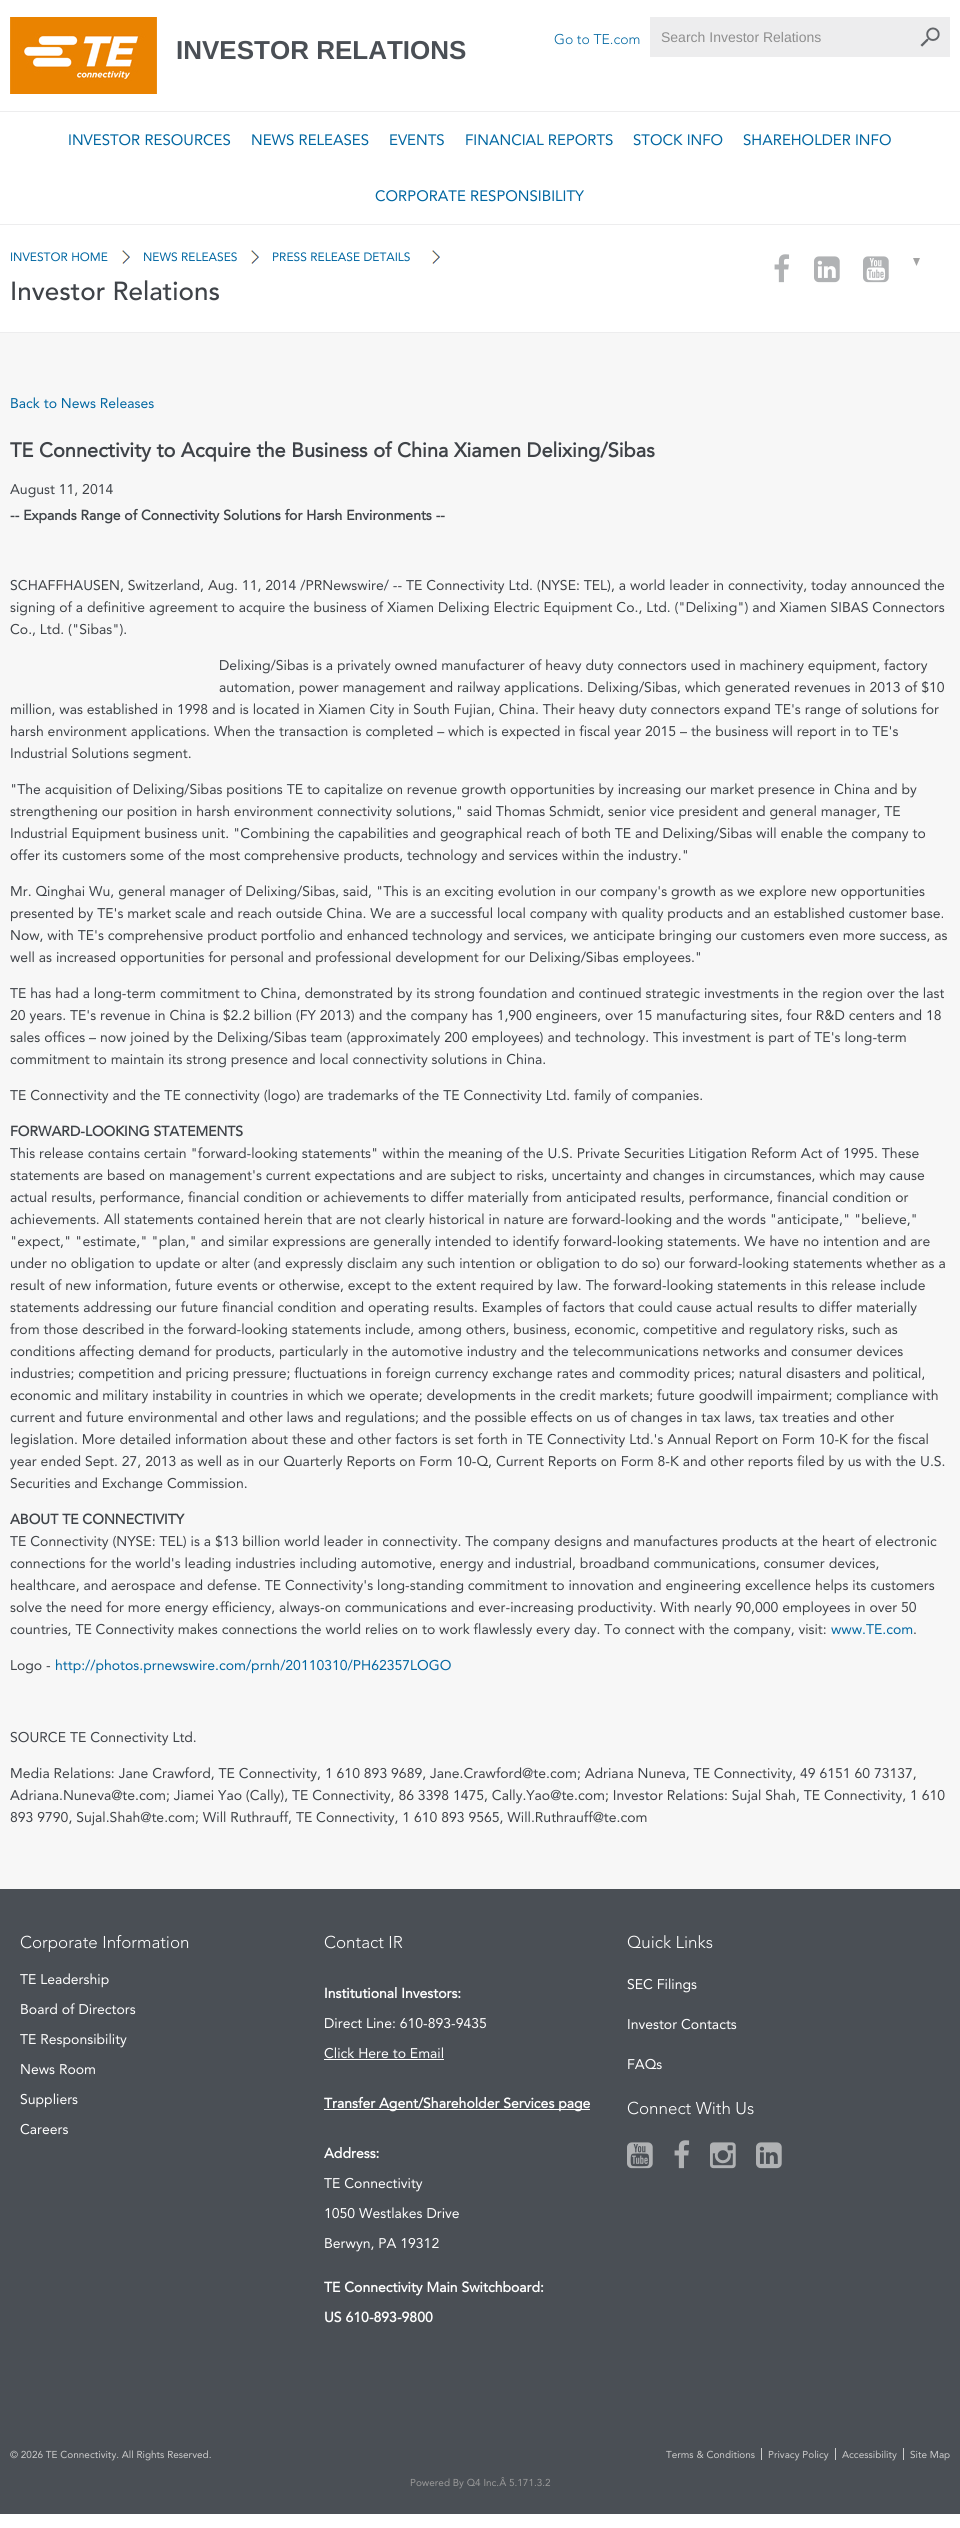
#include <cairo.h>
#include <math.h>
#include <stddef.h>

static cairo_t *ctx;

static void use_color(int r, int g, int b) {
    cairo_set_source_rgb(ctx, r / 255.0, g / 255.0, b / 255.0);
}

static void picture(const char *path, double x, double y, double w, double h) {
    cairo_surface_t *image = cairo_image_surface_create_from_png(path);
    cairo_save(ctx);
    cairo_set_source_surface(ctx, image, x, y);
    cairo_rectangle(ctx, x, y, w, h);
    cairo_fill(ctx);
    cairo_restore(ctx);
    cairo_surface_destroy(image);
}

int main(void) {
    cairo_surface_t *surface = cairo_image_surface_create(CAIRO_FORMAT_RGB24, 960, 2528);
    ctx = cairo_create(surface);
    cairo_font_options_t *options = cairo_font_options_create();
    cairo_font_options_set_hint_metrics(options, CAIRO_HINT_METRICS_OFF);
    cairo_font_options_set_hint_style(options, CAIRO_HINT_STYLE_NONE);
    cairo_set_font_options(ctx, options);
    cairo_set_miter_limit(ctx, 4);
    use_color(255, 255, 255);
    cairo_paint(ctx);
    picture("img1.png", 10, 17, 147, 77);
    cairo_select_font_face(ctx, "Liberation Sans", CAIRO_FONT_SLANT_NORMAL, CAIRO_FONT_WEIGHT_BOLD);
    cairo_set_font_size(ctx, 26);
    use_color(74, 79, 85);
    cairo_move_to(ctx, 176, 59);
    cairo_show_text(ctx, "INVESTOR RELATIONS");
    cairo_select_font_face(ctx, "Avenir Light", CAIRO_FONT_SLANT_NORMAL, CAIRO_FONT_WEIGHT_NORMAL);
    cairo_set_font_size(ctx, 14);
    use_color(0, 102, 161);
    cairo_move_to(ctx, 554, 44);
    cairo_show_text(ctx, "Go to TE.com");
    use_color(237, 237, 238);
    cairo_rectangle(ctx, 650, 17, 300, 40);
    cairo_fill(ctx);
    cairo_select_font_face(ctx, "Liberation Sans", CAIRO_FONT_SLANT_NORMAL, CAIRO_FONT_WEIGHT_NORMAL);
    use_color(142, 142, 142);
    cairo_move_to(ctx, 661, 42);
    cairo_show_text(ctx, "Search Investor Relations");
    picture("img2.png", 920, 27, 20, 20);
    use_color(237, 237, 238);
    cairo_rectangle(ctx, 0, 111, 960, 1);
    cairo_fill(ctx);
    cairo_rectangle(ctx, 0, 224, 960, 1);
    cairo_fill(ctx);
    cairo_select_font_face(ctx, "Avenir", CAIRO_FONT_SLANT_NORMAL, CAIRO_FONT_WEIGHT_NORMAL);
    cairo_set_font_size(ctx, 15);
    use_color(0, 102, 161);
    cairo_move_to(ctx, 68, 145);
    cairo_show_text(ctx, "INVESTOR RESOURCES");
    cairo_move_to(ctx, 251, 145);
    cairo_show_text(ctx, "NEWS RELEASES");
    cairo_move_to(ctx, 389, 145);
    cairo_show_text(ctx, "EVENTS");
    cairo_move_to(ctx, 465, 145);
    cairo_show_text(ctx, "FINANCIAL REPORTS");
    cairo_move_to(ctx, 633, 145);
    cairo_show_text(ctx, "STOCK INFO");
    cairo_move_to(ctx, 743, 145);
    cairo_show_text(ctx, "SHAREHOLDER INFO");
    cairo_move_to(ctx, 375, 201);
    cairo_show_text(ctx, "CORPORATE RESPONSIBILITY");
    cairo_set_font_size(ctx, 12);
    cairo_move_to(ctx, 10, 261);
    cairo_show_text(ctx, "INVESTOR HOME");
    picture("img3.png", 122, 250, 8, 14);
    cairo_move_to(ctx, 143, 261);
    cairo_show_text(ctx, "NEWS RELEASES");
    picture("img3.png", 251, 250, 8, 14);
    cairo_move_to(ctx, 272, 261);
    cairo_show_text(ctx, "PRESS RELEASE DETAILS");
    picture("img3.png", 432, 250, 8, 14);
    picture("img4.png", 774, 254, 16, 29);
    picture("img5.png", 814, 256, 26, 27);
    picture("img6.png", 863, 256, 26, 27);
    picture("img7.png", 913, 258, 7, 8);
    cairo_select_font_face(ctx, "Avenir Medium", CAIRO_FONT_SLANT_NORMAL, CAIRO_FONT_WEIGHT_NORMAL);
    cairo_set_font_size(ctx, 26);
    use_color(63, 67, 72);
    cairo_move_to(ctx, 10, 300);
    cairo_show_text(ctx, "Investor Relations");
    use_color(247, 247, 247);
    cairo_rectangle(ctx, 0, 333, 960, 1556);
    cairo_fill(ctx);
    use_color(237, 237, 238);
    cairo_rectangle(ctx, 0, 332, 960, 1);
    cairo_fill(ctx);
    cairo_select_font_face(ctx, "Avenir", CAIRO_FONT_SLANT_NORMAL, CAIRO_FONT_WEIGHT_NORMAL);
    cairo_set_font_size(ctx, 14);
    use_color(0, 102, 161);
    cairo_move_to(ctx, 10, 408);
    cairo_show_text(ctx, "Back to News Releases");
    cairo_select_font_face(ctx, "Avenir", CAIRO_FONT_SLANT_NORMAL, CAIRO_FONT_WEIGHT_BOLD);
    cairo_set_font_size(ctx, 20);
    use_color(63, 67, 72);
    cairo_move_to(ctx, 10, 457);
    cairo_show_text(ctx, "TE Connectivity to Acquire the Business of China Xiamen Delixing/Sibas");
    cairo_select_font_face(ctx, "Avenir", CAIRO_FONT_SLANT_NORMAL, CAIRO_FONT_WEIGHT_NORMAL);
    cairo_set_font_size(ctx, 14);
    cairo_move_to(ctx, 10, 494);
    cairo_show_text(ctx, "August 11, 2014");
    cairo_select_font_face(ctx, "Avenir", CAIRO_FONT_SLANT_NORMAL, CAIRO_FONT_WEIGHT_BOLD);
    cairo_move_to(ctx, 10, 520);
    cairo_show_text(ctx, "-- Expands Range of Connectivity Solutions for Harsh Environments --");
    cairo_select_font_face(ctx, "Avenir", CAIRO_FONT_SLANT_NORMAL, CAIRO_FONT_WEIGHT_NORMAL);
    cairo_move_to(ctx, 10, 590);
    cairo_show_text(ctx, "SCHAFFHAUSEN, Switzerland, Aug. 11, 2014 /PRNewswire/ -- TE Connectivity Ltd. (NYSE: TEL), a world leader in connectivity, today announced the");
    cairo_move_to(ctx, 10, 612);
    cairo_show_text(ctx, "signing of a definitive agreement to acquire the business of Xiamen Delixing Electric Equipment Co., Ltd. (\"Delixing\") and Xiamen SIBAS Connectors");
    cairo_move_to(ctx, 10, 634);
    cairo_show_text(ctx, "Co., Ltd. (\"Sibas\").");
    cairo_move_to(ctx, 219, 670);
    cairo_show_text(ctx, "Delixing/Sibas is a privately owned manufacturer of heavy duty connectors used in machinery equipment, factory");
    cairo_move_to(ctx, 219, 692);
    cairo_show_text(ctx, "automation, power management and railway applications. Delixing/Sibas, which generated revenues in 2013 of $10");
    cairo_move_to(ctx, 10, 714);
    cairo_show_text(ctx, "million, was established in 1998 and is located in Xiamen City in South Fujian, China. Their heavy duty connectors expand TE's range of solutions for");
    cairo_move_to(ctx, 10, 736);
    cairo_show_text(ctx, "harsh environment applications. When the transaction is completed – which is expected in fiscal year 2015 – the business will report in to TE's");
    cairo_move_to(ctx, 10, 758);
    cairo_show_text(ctx, "Industrial Solutions segment.");
    cairo_move_to(ctx, 10, 794);
    cairo_show_text(ctx, "\"The acquisition of Delixing/Sibas positions TE to capitalize on revenue growth opportunities by increasing our market presence in China and by");
    cairo_move_to(ctx, 10, 816);
    cairo_show_text(ctx, "strengthening our position in harsh environment connectivity solutions,\" said Thomas Schmidt, senior vice president and general manager, TE");
    cairo_move_to(ctx, 10, 838);
    cairo_show_text(ctx, "Industrial Equipment business unit. \"Combining the capabilities and geographical reach of both TE and Delixing/Sibas will enable the company to");
    cairo_move_to(ctx, 10, 860);
    cairo_show_text(ctx, "offer its customers some of the most comprehensive products, technology and services within the industry.\"");
    cairo_move_to(ctx, 10, 896);
    cairo_show_text(ctx, "Mr. Qinghai Wu, general manager of Delixing/Sibas, said, \"This is an exciting evolution in our company's growth as we explore new opportunities");
    cairo_move_to(ctx, 10, 918);
    cairo_show_text(ctx, "presented by TE's market scale and reach outside China. We are a successful local company with quality products and an established customer base.");
    cairo_move_to(ctx, 10, 940);
    cairo_show_text(ctx, "Now, with TE's comprehensive product portfolio and enhanced technology and services, we anticipate bringing our customers even more success, as");
    cairo_move_to(ctx, 10, 962);
    cairo_show_text(ctx, "well as increased opportunities for personal and professional development for our Delixing/Sibas employees.\"");
    cairo_move_to(ctx, 10, 998);
    cairo_show_text(ctx, "TE has had a long-term commitment to China, demonstrated by its strong foundation and continued strategic investments in the region over the last");
    cairo_move_to(ctx, 10, 1020);
    cairo_show_text(ctx, "20 years. TE's revenue in China is $2.2 billion (FY 2013) and the company has 1,900 engineers, over 15 manufacturing sites, four R&D centers and 18");
    cairo_move_to(ctx, 10, 1042);
    cairo_show_text(ctx, "sales offices – now joined by the Delixing/Sibas team (approximately 200 employees) and technology. This investment is part of TE's long-term");
    cairo_move_to(ctx, 10, 1064);
    cairo_show_text(ctx, "commitment to maintain its strong presence and local connectivity solutions in China.");
    cairo_move_to(ctx, 10, 1100);
    cairo_show_text(ctx, "TE Connectivity and the TE connectivity (logo) are trademarks of the TE Connectivity Ltd. family of companies.");
    cairo_select_font_face(ctx, "Avenir", CAIRO_FONT_SLANT_NORMAL, CAIRO_FONT_WEIGHT_BOLD);
    cairo_move_to(ctx, 10, 1136);
    cairo_show_text(ctx, "FORWARD-LOOKING STATEMENTS");
    cairo_select_font_face(ctx, "Avenir", CAIRO_FONT_SLANT_NORMAL, CAIRO_FONT_WEIGHT_NORMAL);
    cairo_move_to(ctx, 10, 1158);
    cairo_show_text(ctx, "This release contains certain \"forward-looking statements\" within the meaning of the U.S. Private Securities Litigation Reform Act of 1995. These");
    cairo_move_to(ctx, 10, 1180);
    cairo_show_text(ctx, "statements are based on management's current expectations and are subject to risks, uncertainty and changes in circumstances, which may cause");
    cairo_move_to(ctx, 10, 1202);
    cairo_show_text(ctx, "actual results, performance, financial condition or achievements to differ materially from anticipated results, performance, financial condition or");
    cairo_move_to(ctx, 10, 1224);
    cairo_show_text(ctx, "achievements. All statements contained herein that are not clearly historical in nature are forward-looking and the words \"anticipate,\" \"believe,\"");
    cairo_move_to(ctx, 10, 1246);
    cairo_show_text(ctx, "\"expect,\" \"estimate,\" \"plan,\" and similar expressions are generally intended to identify forward-looking statements. We have no intention and are");
    cairo_move_to(ctx, 10, 1268);
    cairo_show_text(ctx, "under no obligation to update or alter (and expressly disclaim any such intention or obligation to do so) our forward-looking statements whether as a");
    cairo_move_to(ctx, 10, 1290);
    cairo_show_text(ctx, "result of new information, future events or otherwise, except to the extent required by law. The forward-looking statements in this release include");
    cairo_move_to(ctx, 10, 1312);
    cairo_show_text(ctx, "statements addressing our future financial condition and operating results. Examples of factors that could cause actual results to differ materially");
    cairo_move_to(ctx, 10, 1334);
    cairo_show_text(ctx, "from those described in the forward-looking statements include, among others, business, economic, competitive and regulatory risks, such as");
    cairo_move_to(ctx, 10, 1356);
    cairo_show_text(ctx, "conditions affecting demand for products, particularly in the automotive industry and the telecommunications networks and consumer devices");
    cairo_move_to(ctx, 10, 1378);
    cairo_show_text(ctx, "industries; competition and pricing pressure; fluctuations in foreign currency exchange rates and commodity prices; natural disasters and political,");
    cairo_move_to(ctx, 10, 1400);
    cairo_show_text(ctx, "economic and military instability in countries in which we operate; developments in the credit markets; future goodwill impairment; compliance with");
    cairo_move_to(ctx, 10, 1422);
    cairo_show_text(ctx, "current and future environmental and other laws and regulations; and the possible effects on us of changes in tax laws, tax treaties and other");
    cairo_move_to(ctx, 10, 1444);
    cairo_show_text(ctx, "legislation. More detailed information about these and other factors is set forth in TE Connectivity Ltd.'s Annual Report on Form 10-K for the fiscal");
    cairo_move_to(ctx, 10, 1466);
    cairo_show_text(ctx, "year ended Sept. 27, 2013 as well as in our Quarterly Reports on Form 10-Q, Current Reports on Form 8-K and other reports filed by us with the U.S.");
    cairo_move_to(ctx, 10, 1488);
    cairo_show_text(ctx, "Securities and Exchange Commission.");
    cairo_select_font_face(ctx, "Avenir", CAIRO_FONT_SLANT_NORMAL, CAIRO_FONT_WEIGHT_BOLD);
    cairo_move_to(ctx, 10, 1524);
    cairo_show_text(ctx, "ABOUT TE CONNECTIVITY");
    cairo_select_font_face(ctx, "Avenir", CAIRO_FONT_SLANT_NORMAL, CAIRO_FONT_WEIGHT_NORMAL);
    cairo_move_to(ctx, 10, 1546);
    cairo_show_text(ctx, "TE Connectivity (NYSE: TEL) is a $13 billion world leader in connectivity. The company designs and manufactures products at the heart of electronic");
    cairo_move_to(ctx, 10, 1568);
    cairo_show_text(ctx, "connections for the world's leading industries including automotive, energy and industrial, broadband communications, consumer devices,");
    cairo_move_to(ctx, 10, 1590);
    cairo_show_text(ctx, "healthcare, and aerospace and defense. TE Connectivity's long-standing commitment to innovation and engineering excellence helps its customers");
    cairo_move_to(ctx, 10, 1612);
    cairo_show_text(ctx, "solve the need for more energy efficiency, always-on communications and ever-increasing productivity. With nearly 90,000 employees in over 50");
    cairo_move_to(ctx, 10, 1634);
    cairo_show_text(ctx, "countries, TE Connectivity makes connections the world relies on to work flawlessly every day. To connect with the company, visit:");
    use_color(0, 102, 161);
    cairo_move_to(ctx, 831, 1634);
    cairo_show_text(ctx, "www.TE.com");
    use_color(63, 67, 72);
    cairo_move_to(ctx, 913, 1634);
    cairo_show_text(ctx, ".");
    cairo_move_to(ctx, 10, 1670);
    cairo_show_text(ctx, "Logo -");
    use_color(0, 102, 161);
    cairo_move_to(ctx, 55, 1670);
    cairo_show_text(ctx, "http://photos.prnewswire.com/prnh/20110310/PH62357LOGO");
    use_color(63, 67, 72);
    cairo_move_to(ctx, 10, 1742);
    cairo_show_text(ctx, "SOURCE TE Connectivity Ltd.");
    cairo_move_to(ctx, 10, 1778);
    cairo_show_text(ctx, "Media Relations: Jane Crawford, TE Connectivity, 1 610 893 9689, Jane.Crawford@te.com; Adriana Nuneva, TE Connectivity, 49 6151 60 73137,");
    cairo_move_to(ctx, 10, 1800);
    cairo_show_text(ctx, "Adriana.Nuneva@te.com; Jiamei Yao (Cally), TE Connectivity, 86 3398 1475, Cally.Yao@te.com; Investor Relations: Sujal Shah, TE Connectivity, 1 610");
    cairo_move_to(ctx, 10, 1822);
    cairo_show_text(ctx, "893 9790, Sujal.Shah@te.com; Will Ruthrauff, TE Connectivity, 1 610 893 9565, Will.Ruthrauff@te.com");
    use_color(74, 79, 85);
    cairo_rectangle(ctx, 0, 1889, 960, 625);
    cairo_fill(ctx);
    cairo_select_font_face(ctx, "Avenir Light", CAIRO_FONT_SLANT_NORMAL, CAIRO_FONT_WEIGHT_NORMAL);
    cairo_set_font_size(ctx, 17);
    use_color(255, 255, 255);
    cairo_move_to(ctx, 20, 1948);
    cairo_show_text(ctx, "Corporate Information");
    cairo_select_font_face(ctx, "Avenir", CAIRO_FONT_SLANT_NORMAL, CAIRO_FONT_WEIGHT_NORMAL);
    cairo_set_font_size(ctx, 14);
    cairo_move_to(ctx, 20, 1984);
    cairo_show_text(ctx, "TE Leadership");
    cairo_move_to(ctx, 20, 2014);
    cairo_show_text(ctx, "Board of Directors");
    cairo_move_to(ctx, 20, 2044);
    cairo_show_text(ctx, "TE Responsibility");
    cairo_move_to(ctx, 20, 2074);
    cairo_show_text(ctx, "News Room");
    cairo_move_to(ctx, 20, 2104);
    cairo_show_text(ctx, "Suppliers");
    cairo_move_to(ctx, 20, 2134);
    cairo_show_text(ctx, "Careers");
    cairo_select_font_face(ctx, "Avenir Light", CAIRO_FONT_SLANT_NORMAL, CAIRO_FONT_WEIGHT_NORMAL);
    cairo_set_font_size(ctx, 17);
    cairo_move_to(ctx, 324, 1948);
    cairo_show_text(ctx, "Contact IR");
    cairo_select_font_face(ctx, "Avenir", CAIRO_FONT_SLANT_NORMAL, CAIRO_FONT_WEIGHT_BOLD);
    cairo_set_font_size(ctx, 14);
    cairo_move_to(ctx, 324, 1998);
    cairo_show_text(ctx, "Institutional Investors:");
    cairo_select_font_face(ctx, "Avenir", CAIRO_FONT_SLANT_NORMAL, CAIRO_FONT_WEIGHT_NORMAL);
    cairo_move_to(ctx, 324, 2028);
    cairo_show_text(ctx, "Direct Line: 610-893-9435");
    cairo_move_to(ctx, 324, 2058);
    cairo_show_text(ctx, "Click Here to Email");
    cairo_rectangle(ctx, 324, 2059, 120, 1);
    cairo_fill(ctx);
    cairo_rectangle(ctx, 324, 2109, 266, 1);
    cairo_fill(ctx);
    cairo_select_font_face(ctx, "Avenir", CAIRO_FONT_SLANT_NORMAL, CAIRO_FONT_WEIGHT_BOLD);
    cairo_move_to(ctx, 324, 2108);
    cairo_show_text(ctx, "Transfer Agent/Shareholder Services page");
    cairo_move_to(ctx, 324, 2158);
    cairo_show_text(ctx, "Address:");
    cairo_select_font_face(ctx, "Avenir", CAIRO_FONT_SLANT_NORMAL, CAIRO_FONT_WEIGHT_NORMAL);
    cairo_move_to(ctx, 324, 2188);
    cairo_show_text(ctx, "TE Connectivity");
    cairo_move_to(ctx, 324, 2218);
    cairo_show_text(ctx, "1050 Westlakes Drive");
    cairo_move_to(ctx, 324, 2248);
    cairo_show_text(ctx, "Berwyn, PA 19312");
    cairo_select_font_face(ctx, "Avenir", CAIRO_FONT_SLANT_NORMAL, CAIRO_FONT_WEIGHT_BOLD);
    cairo_move_to(ctx, 324, 2292);
    cairo_show_text(ctx, "TE Connectivity Main Switchboard:");
    cairo_move_to(ctx, 324, 2322);
    cairo_show_text(ctx, "US 610-893-9800");
    cairo_select_font_face(ctx, "Avenir Light", CAIRO_FONT_SLANT_NORMAL, CAIRO_FONT_WEIGHT_NORMAL);
    cairo_set_font_size(ctx, 17);
    cairo_move_to(ctx, 627, 1948);
    cairo_show_text(ctx, "Quick Links");
    cairo_select_font_face(ctx, "Avenir", CAIRO_FONT_SLANT_NORMAL, CAIRO_FONT_WEIGHT_NORMAL);
    cairo_set_font_size(ctx, 14);
    cairo_move_to(ctx, 627, 1989);
    cairo_show_text(ctx, "SEC Filings");
    cairo_move_to(ctx, 627, 2029);
    cairo_show_text(ctx, "Investor Contacts");
    cairo_move_to(ctx, 627, 2069);
    cairo_show_text(ctx, "FAQs");
    cairo_select_font_face(ctx, "Avenir Light", CAIRO_FONT_SLANT_NORMAL, CAIRO_FONT_WEIGHT_NORMAL);
    cairo_set_font_size(ctx, 17);
    cairo_move_to(ctx, 627, 2114);
    cairo_show_text(ctx, "Connect With Us");
    picture("img8.png", 627, 2142, 26, 27);
    picture("img9.png", 674, 2140, 16, 29);
    picture("img10.png", 710, 2142, 26, 27);
    picture("img11.png", 756, 2142, 26, 27);
    cairo_select_font_face(ctx, "Avenir", CAIRO_FONT_SLANT_NORMAL, CAIRO_FONT_WEIGHT_NORMAL);
    cairo_set_font_size(ctx, 10);
    use_color(204, 204, 204);
    cairo_move_to(ctx, 10, 2458);
    cairo_show_text(ctx, "© 2026 TE Connectivity. All Rights Reserved.");
    cairo_move_to(ctx, 666, 2458);
    cairo_show_text(ctx, "Terms & Conditions");
    cairo_rectangle(ctx, 761, 2448, 1, 12);
    cairo_fill(ctx);
    cairo_move_to(ctx, 768, 2458);
    cairo_show_text(ctx, "Privacy Policy");
    cairo_rectangle(ctx, 835, 2448, 1, 12);
    cairo_fill(ctx);
    cairo_move_to(ctx, 842, 2458);
    cairo_show_text(ctx, "Accessibility");
    cairo_rectangle(ctx, 903, 2448, 1, 12);
    cairo_fill(ctx);
    cairo_move_to(ctx, 910, 2458);
    cairo_show_text(ctx, "Site Map");
    use_color(153, 153, 153);
    cairo_move_to(ctx, 410, 2486);
    cairo_show_text(ctx, "Powered By Q4 Inc.Â 5.171.3.2");
    cairo_surface_write_to_png(surface, "result.png");
    cairo_font_options_destroy(options);
    cairo_destroy(ctx);
    cairo_surface_destroy(surface);
    return 0;
}
